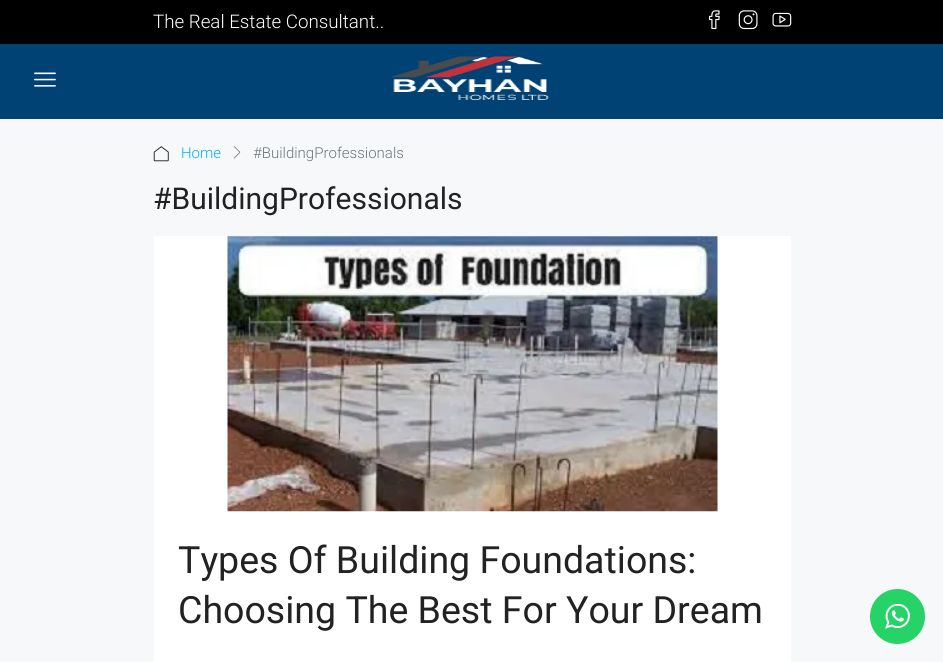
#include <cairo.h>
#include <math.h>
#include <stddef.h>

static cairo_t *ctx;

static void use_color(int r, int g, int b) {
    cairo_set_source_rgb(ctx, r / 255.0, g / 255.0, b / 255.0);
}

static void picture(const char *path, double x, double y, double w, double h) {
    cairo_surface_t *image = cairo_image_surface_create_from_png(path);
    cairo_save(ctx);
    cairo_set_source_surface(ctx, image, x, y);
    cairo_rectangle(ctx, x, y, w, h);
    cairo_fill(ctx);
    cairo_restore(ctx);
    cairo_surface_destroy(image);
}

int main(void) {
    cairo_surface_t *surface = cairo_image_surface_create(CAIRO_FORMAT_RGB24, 943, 662);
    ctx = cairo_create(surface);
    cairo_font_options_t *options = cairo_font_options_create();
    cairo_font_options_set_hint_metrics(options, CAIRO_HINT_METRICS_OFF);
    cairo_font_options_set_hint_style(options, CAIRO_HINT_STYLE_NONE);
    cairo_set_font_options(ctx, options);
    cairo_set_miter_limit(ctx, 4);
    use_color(247, 248, 249);
    cairo_paint(ctx);
    use_color(0, 0, 0);
    cairo_rectangle(ctx, 0, 0, 943, 44);
    cairo_fill(ctx);
    cairo_select_font_face(ctx, "Roboto Light", CAIRO_FONT_SLANT_NORMAL, CAIRO_FONT_WEIGHT_NORMAL);
    cairo_set_font_size(ctx, 18.75);
    use_color(255, 255, 255);
    cairo_move_to(ctx, 153, 28);
    cairo_show_text(ctx, "The Real Estate Consultant..");
    picture("img1.png", 709, 10, 11, 20);
    picture("img2.png", 738, 10, 20, 20);
    picture("img3.png", 772, 12, 20, 15);
    use_color(0, 66, 116);
    cairo_rectangle(ctx, 0, 44, 943, 75);
    cairo_fill(ctx);
    picture("img4.png", 34, 72, 22, 15);
    picture("img5.png", 390, 56, 159, 44);
    picture("img6.png", 153, 146, 16, 16);
    cairo_set_font_size(ctx, 15);
    use_color(0, 174, 255);
    cairo_move_to(ctx, 181, 158);
    cairo_show_text(ctx, "Home");
    picture("img7.png", 233, 146, 8, 13);
    use_color(108, 117, 125);
    cairo_move_to(ctx, 253, 158);
    cairo_show_text(ctx, "#BuildingProfessionals");
    cairo_select_font_face(ctx, "Roboto", CAIRO_FONT_SLANT_NORMAL, CAIRO_FONT_WEIGHT_NORMAL);
    cairo_set_font_size(ctx, 30);
    use_color(34, 34, 34);
    cairo_move_to(ctx, 153, 209);
    cairo_show_text(ctx, "#BuildingProfessionals");
    use_color(255, 255, 255);
    cairo_rectangle(ctx, 154, 236, 637, 426);
    cairo_fill(ctx);
    picture("img8.png", 227, 236, 491, 276);
    cairo_set_font_size(ctx, 37.5);
    use_color(34, 34, 34);
    cairo_move_to(ctx, 178, 573);
    cairo_show_text(ctx, "Types Of Building Foundations:");
    cairo_move_to(ctx, 178, 623);
    cairo_show_text(ctx, "Choosing The Best For Your Dream");
    use_color(37, 211, 102);
    cairo_new_path(ctx);
    cairo_arc(ctx, 897.5, 616.5, 27.5, 0, 2 * M_PI);
    cairo_fill(ctx);
    picture("img9.png", 885, 604, 25, 25);
    cairo_surface_write_to_png(surface, "result.png");
    cairo_font_options_destroy(options);
    cairo_destroy(ctx);
    cairo_surface_destroy(surface);
    return 0;
}
